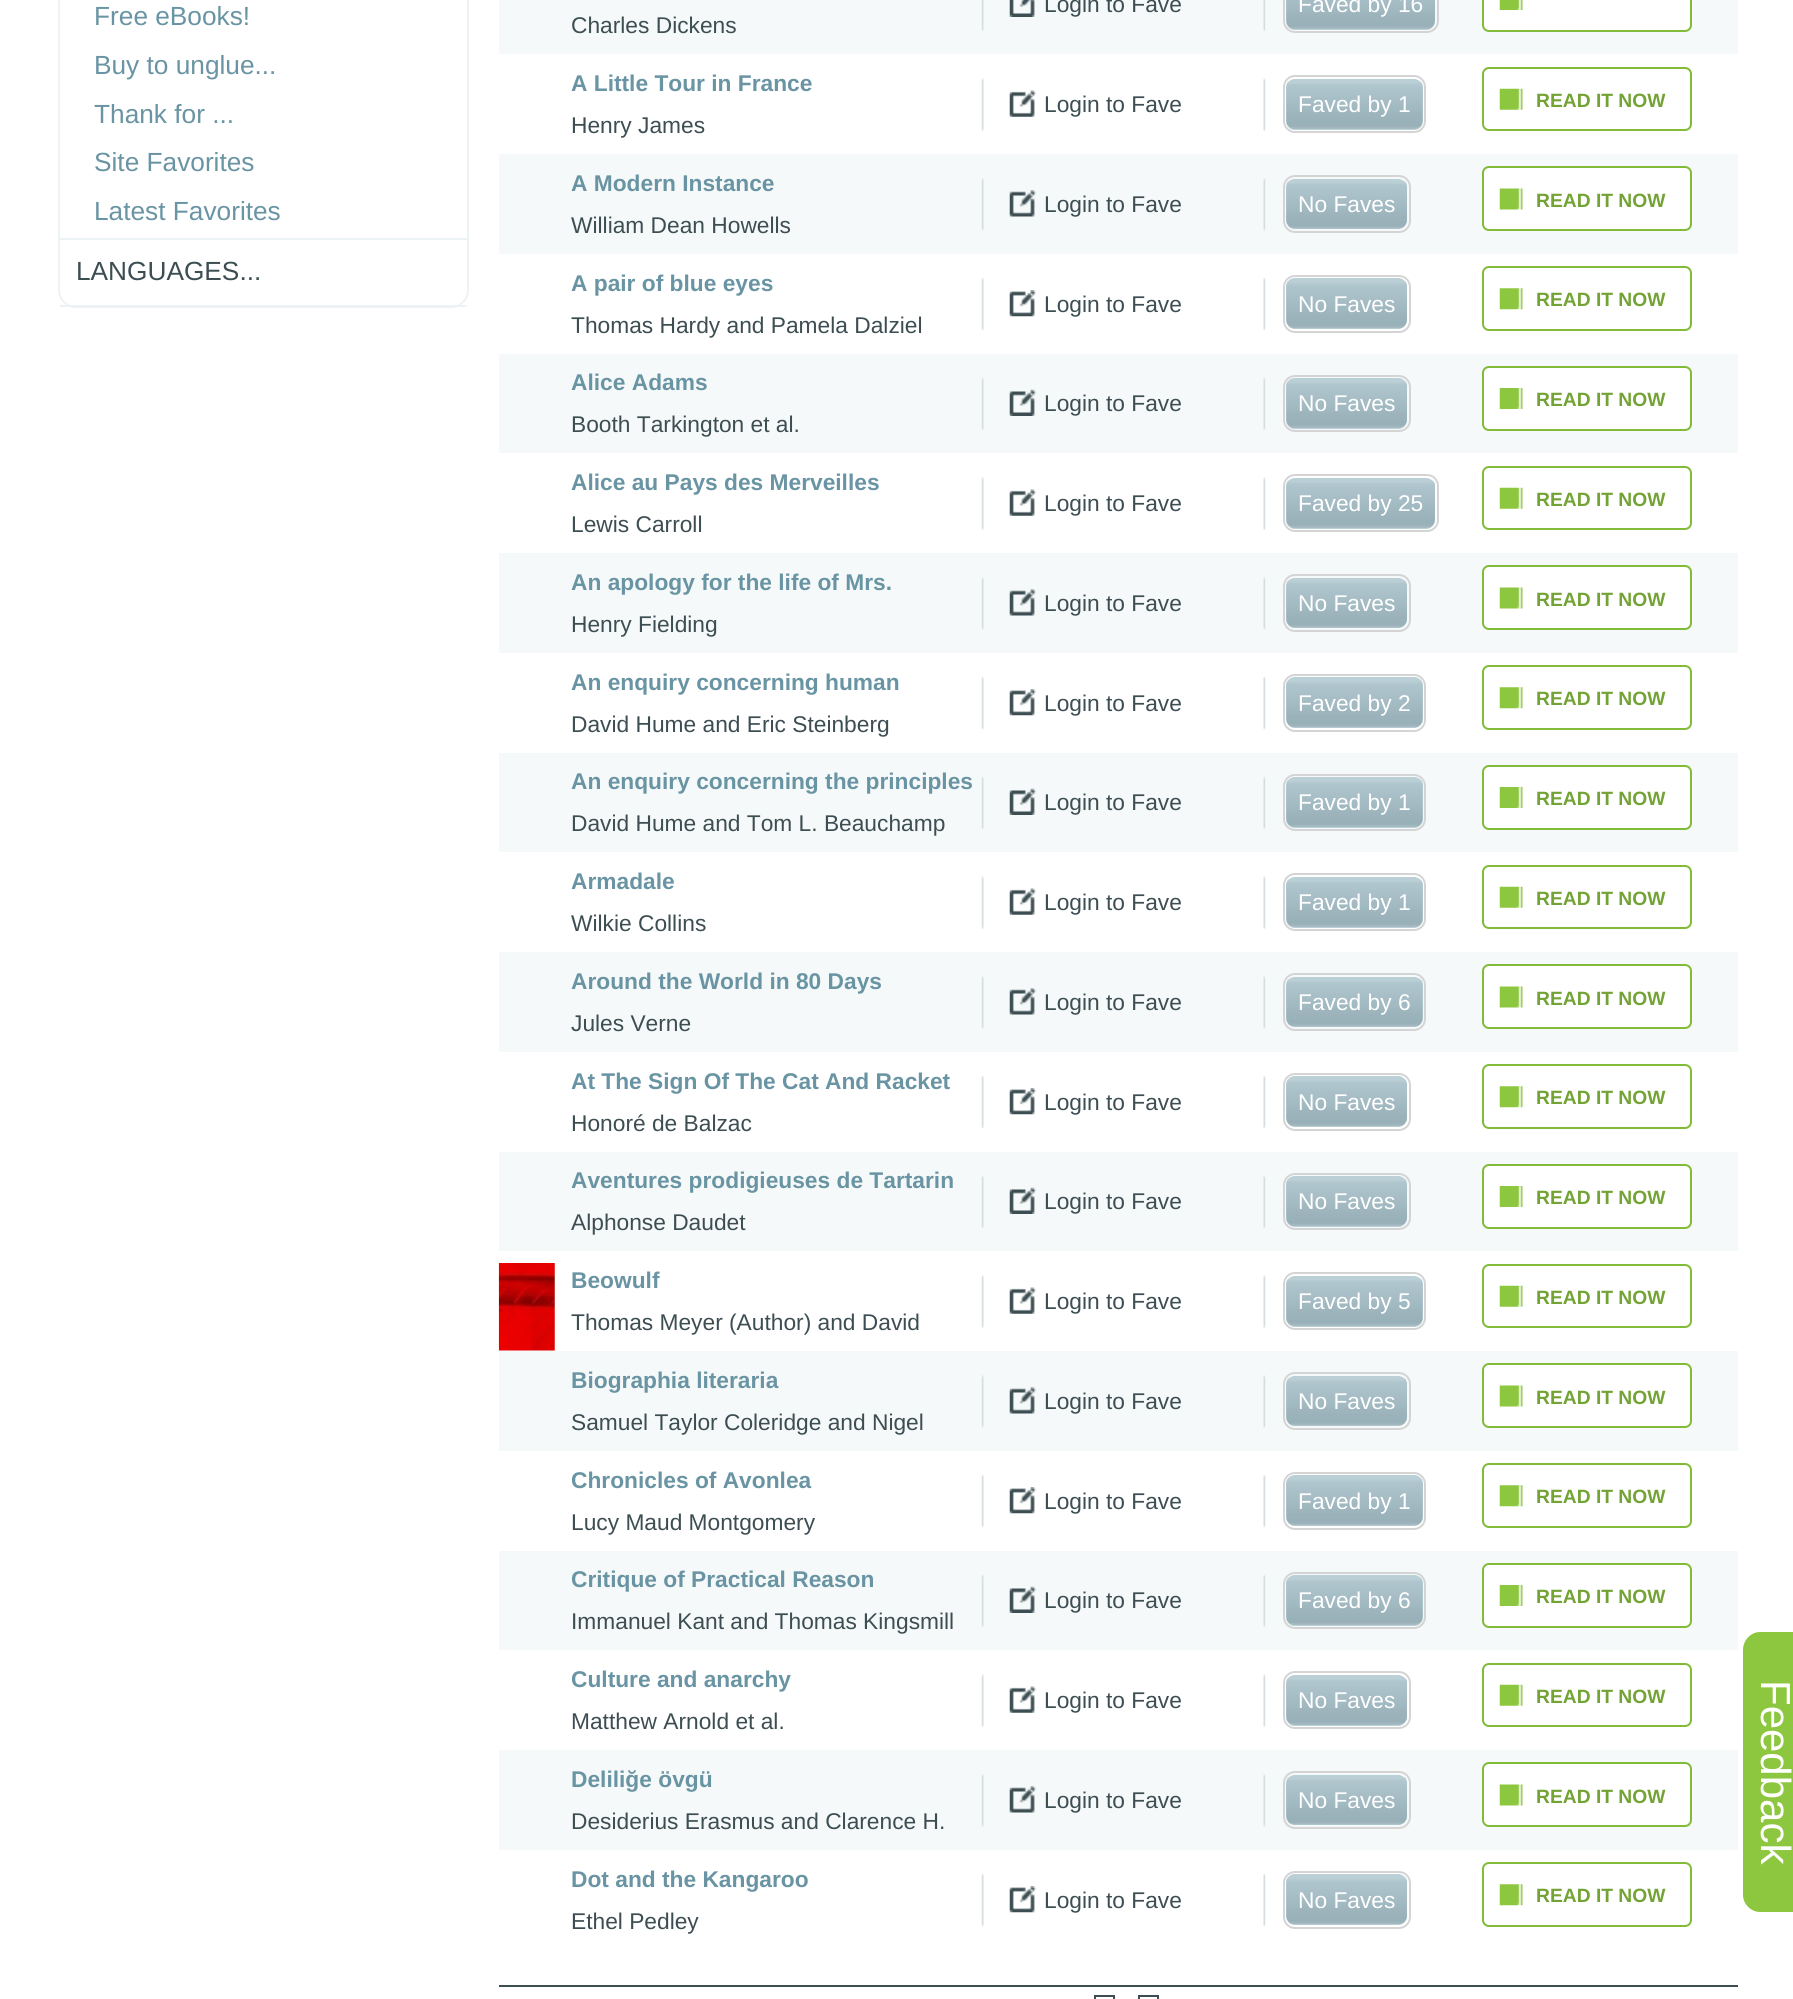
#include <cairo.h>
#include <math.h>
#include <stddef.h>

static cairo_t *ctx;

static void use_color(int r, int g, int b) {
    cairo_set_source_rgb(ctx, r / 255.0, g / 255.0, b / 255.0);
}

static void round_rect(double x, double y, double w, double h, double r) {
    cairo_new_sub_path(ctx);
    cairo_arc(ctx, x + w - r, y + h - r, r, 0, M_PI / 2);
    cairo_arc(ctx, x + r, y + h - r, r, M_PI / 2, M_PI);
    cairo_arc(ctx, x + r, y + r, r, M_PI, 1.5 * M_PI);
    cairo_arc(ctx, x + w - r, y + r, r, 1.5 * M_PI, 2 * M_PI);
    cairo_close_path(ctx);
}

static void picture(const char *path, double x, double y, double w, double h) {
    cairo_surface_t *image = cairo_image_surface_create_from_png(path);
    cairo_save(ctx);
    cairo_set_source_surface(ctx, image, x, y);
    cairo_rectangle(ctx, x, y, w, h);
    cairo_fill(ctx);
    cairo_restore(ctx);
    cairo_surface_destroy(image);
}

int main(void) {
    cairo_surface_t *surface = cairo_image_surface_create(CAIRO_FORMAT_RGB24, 1793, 1999);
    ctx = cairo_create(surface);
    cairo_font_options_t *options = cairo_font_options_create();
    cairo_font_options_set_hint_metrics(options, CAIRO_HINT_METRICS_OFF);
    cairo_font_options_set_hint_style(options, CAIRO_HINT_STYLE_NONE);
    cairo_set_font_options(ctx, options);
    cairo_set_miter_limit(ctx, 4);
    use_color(255, 255, 255);
    cairo_paint(ctx);
    cairo_new_path(ctx);
    cairo_move_to(ctx, 59, -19);
    cairo_line_to(ctx, 468, -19);
    cairo_line_to(ctx, 468, 290);
    cairo_curve_to(ctx, 468, 299.5, 460.5, 307, 451, 307);
    cairo_line_to(ctx, 76, 307);
    cairo_curve_to(ctx, 66.5, 307, 59, 299.5, 59, 290);
    cairo_close_path(ctx);
    use_color(237, 243, 244);
    cairo_stroke(ctx);
    cairo_select_font_face(ctx, "Liberation Sans", CAIRO_FONT_SLANT_NORMAL, CAIRO_FONT_WEIGHT_NORMAL);
    cairo_set_font_size(ctx, 26.25);
    use_color(105, 148, 163);
    cairo_move_to(ctx, 94, 25);
    cairo_show_text(ctx, "Free eBooks!");
    cairo_move_to(ctx, 94, 74);
    cairo_show_text(ctx, "Buy to unglue...");
    cairo_move_to(ctx, 94, 123);
    cairo_show_text(ctx, "Thank for ...");
    cairo_move_to(ctx, 94, 171);
    cairo_show_text(ctx, "Site Favorites");
    cairo_move_to(ctx, 94, 220);
    cairo_show_text(ctx, "Latest Favorites");
    use_color(237, 243, 244);
    cairo_rectangle(ctx, 60, 238, 407, 2);
    cairo_fill(ctx);
    cairo_rectangle(ctx, 60, 305, 407, 2);
    cairo_fill(ctx);
    use_color(61, 78, 83);
    cairo_move_to(ctx, 76, 280);
    cairo_show_text(ctx, "LANGUAGES...");
    use_color(246, 249, 249);
    cairo_rectangle(ctx, 499, 0, 1239, 54);
    cairo_fill(ctx);
    picture("img1.png", 1263, 0, 3, 31);
    picture("img2.png", 1009, 0, 26, 17);
    cairo_set_font_size(ctx, 22.75);
    use_color(61, 78, 83);
    cairo_move_to(ctx, 1044, 12);
    cairo_show_text(ctx, "Login to Fave");
    round_rect(1284, -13, 154, 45, 11);
    use_color(212, 212, 212);
    cairo_stroke(ctx);
    use_color(186, 207, 214);
    round_rect(1286, -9, 149, 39, 9);
    cairo_fill(ctx);
    picture("img3.png", 1286, 0, 149, 29);
    use_color(255, 255, 255);
    cairo_move_to(ctx, 1298, 12);
    cairo_show_text(ctx, "Faved by 16");
    round_rect(1483, -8, 208, 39, 6);
    cairo_fill_preserve(ctx);
    use_color(129, 187, 56);
    cairo_stroke(ctx);
    picture("img4.png", 1499, 0, 24, 10);
    picture("img5.png", 981, 0, 3, 31);
    use_color(61, 78, 83);
    cairo_move_to(ctx, 571, 33);
    cairo_show_text(ctx, "Charles Dickens");
    picture("img6.png", 981, 78, 3, 53);
    cairo_select_font_face(ctx, "Liberation Sans", CAIRO_FONT_SLANT_NORMAL, CAIRO_FONT_WEIGHT_BOLD);
    use_color(105, 148, 163);
    cairo_move_to(ctx, 571, 91);
    cairo_show_text(ctx, "A Little Tour in France");
    cairo_select_font_face(ctx, "Liberation Sans", CAIRO_FONT_SLANT_NORMAL, CAIRO_FONT_WEIGHT_NORMAL);
    use_color(61, 78, 83);
    cairo_move_to(ctx, 571, 133);
    cairo_show_text(ctx, "Henry James");
    picture("img7.png", 1263, 78, 3, 53);
    picture("img8.png", 1009, 90, 27, 27);
    cairo_move_to(ctx, 1044, 112);
    cairo_show_text(ctx, "Login to Fave");
    round_rect(1284, 76, 141, 56, 11);
    use_color(212, 212, 212);
    cairo_stroke(ctx);
    use_color(186, 207, 214);
    round_rect(1286, 79, 137, 51, 9);
    cairo_fill(ctx);
    picture("img9.png", 1286, 81, 137, 48);
    use_color(255, 255, 255);
    cairo_move_to(ctx, 1298, 112);
    cairo_show_text(ctx, "Faved by 1");
    round_rect(1483, 68, 208, 62, 6);
    use_color(129, 187, 56);
    cairo_stroke(ctx);
    picture("img10.png", 1499, 88, 24, 22);
    cairo_select_font_face(ctx, "Liberation Sans", CAIRO_FONT_SLANT_NORMAL, CAIRO_FONT_WEIGHT_BOLD);
    cairo_set_font_size(ctx, 19.25);
    use_color(115, 163, 52);
    cairo_move_to(ctx, 1536, 107);
    cairo_show_text(ctx, "READ IT NOW");
    use_color(246, 249, 249);
    cairo_rectangle(ctx, 499, 154, 1239, 100);
    cairo_fill(ctx);
    picture("img11.png", 981, 178, 3, 53);
    cairo_set_font_size(ctx, 22.75);
    use_color(105, 148, 163);
    cairo_move_to(ctx, 571, 191);
    cairo_show_text(ctx, "A Modern Instance");
    cairo_select_font_face(ctx, "Liberation Sans", CAIRO_FONT_SLANT_NORMAL, CAIRO_FONT_WEIGHT_NORMAL);
    use_color(61, 78, 83);
    cairo_move_to(ctx, 571, 233);
    cairo_show_text(ctx, "William Dean Howells");
    picture("img12.png", 1263, 178, 3, 53);
    picture("img13.png", 1009, 190, 27, 27);
    cairo_move_to(ctx, 1044, 212);
    cairo_show_text(ctx, "Login to Fave");
    round_rect(1284, 176, 126, 56, 11);
    use_color(212, 212, 212);
    cairo_stroke(ctx);
    use_color(186, 207, 214);
    round_rect(1286, 179, 121, 50, 9);
    cairo_fill(ctx);
    picture("img14.png", 1286, 181, 121, 48);
    use_color(255, 255, 255);
    cairo_move_to(ctx, 1298, 212);
    cairo_show_text(ctx, "No Faves");
    round_rect(1483, 167, 208, 63, 6);
    cairo_fill_preserve(ctx);
    use_color(129, 187, 56);
    cairo_stroke(ctx);
    picture("img15.png", 1499, 188, 24, 22);
    cairo_select_font_face(ctx, "Liberation Sans", CAIRO_FONT_SLANT_NORMAL, CAIRO_FONT_WEIGHT_BOLD);
    cairo_set_font_size(ctx, 19.25);
    use_color(115, 163, 52);
    cairo_move_to(ctx, 1536, 207);
    cairo_show_text(ctx, "READ IT NOW");
    picture("img16.png", 981, 277, 3, 54);
    cairo_set_font_size(ctx, 22.75);
    use_color(105, 148, 163);
    cairo_move_to(ctx, 571, 291);
    cairo_show_text(ctx, "A pair of blue eyes");
    cairo_select_font_face(ctx, "Liberation Sans", CAIRO_FONT_SLANT_NORMAL, CAIRO_FONT_WEIGHT_NORMAL);
    use_color(61, 78, 83);
    cairo_move_to(ctx, 571, 333);
    cairo_show_text(ctx, "Thomas Hardy and Pamela Dalziel");
    picture("img17.png", 1263, 277, 3, 54);
    picture("img18.png", 1009, 290, 27, 27);
    cairo_move_to(ctx, 1044, 312);
    cairo_show_text(ctx, "Login to Fave");
    round_rect(1284, 276, 126, 56, 11);
    use_color(212, 212, 212);
    cairo_stroke(ctx);
    use_color(186, 207, 214);
    round_rect(1286, 278, 121, 51, 9);
    cairo_fill(ctx);
    picture("img19.png", 1286, 281, 121, 48);
    use_color(255, 255, 255);
    cairo_move_to(ctx, 1298, 312);
    cairo_show_text(ctx, "No Faves");
    round_rect(1483, 267, 208, 63, 6);
    use_color(129, 187, 56);
    cairo_stroke(ctx);
    picture("img20.png", 1499, 288, 24, 22);
    cairo_select_font_face(ctx, "Liberation Sans", CAIRO_FONT_SLANT_NORMAL, CAIRO_FONT_WEIGHT_BOLD);
    cairo_set_font_size(ctx, 19.25);
    use_color(115, 163, 52);
    cairo_move_to(ctx, 1536, 306);
    cairo_show_text(ctx, "READ IT NOW");
    use_color(246, 249, 249);
    cairo_rectangle(ctx, 499, 354, 1239, 99);
    cairo_fill(ctx);
    picture("img21.png", 981, 377, 3, 53);
    cairo_set_font_size(ctx, 22.75);
    use_color(105, 148, 163);
    cairo_move_to(ctx, 571, 390);
    cairo_show_text(ctx, "Alice Adams");
    cairo_select_font_face(ctx, "Liberation Sans", CAIRO_FONT_SLANT_NORMAL, CAIRO_FONT_WEIGHT_NORMAL);
    use_color(61, 78, 83);
    cairo_move_to(ctx, 571, 432);
    cairo_show_text(ctx, "Booth Tarkington et al.");
    picture("img22.png", 1263, 377, 3, 53);
    picture("img23.png", 1009, 389, 27, 27);
    cairo_move_to(ctx, 1044, 411);
    cairo_show_text(ctx, "Login to Fave");
    round_rect(1284, 376, 126, 55, 11);
    use_color(212, 212, 212);
    cairo_stroke(ctx);
    use_color(186, 207, 214);
    round_rect(1286, 378, 121, 51, 9);
    cairo_fill(ctx);
    picture("img24.png", 1286, 381, 121, 47);
    use_color(255, 255, 255);
    cairo_move_to(ctx, 1298, 411);
    cairo_show_text(ctx, "No Faves");
    round_rect(1483, 367, 208, 63, 6);
    cairo_fill_preserve(ctx);
    use_color(129, 187, 56);
    cairo_stroke(ctx);
    picture("img25.png", 1499, 388, 24, 21);
    cairo_select_font_face(ctx, "Liberation Sans", CAIRO_FONT_SLANT_NORMAL, CAIRO_FONT_WEIGHT_BOLD);
    cairo_set_font_size(ctx, 19.25);
    use_color(115, 163, 52);
    cairo_move_to(ctx, 1536, 406);
    cairo_show_text(ctx, "READ IT NOW");
    picture("img6.png", 981, 477, 3, 53);
    cairo_set_font_size(ctx, 22.75);
    use_color(105, 148, 163);
    cairo_move_to(ctx, 571, 490);
    cairo_show_text(ctx, "Alice au Pays des Merveilles");
    cairo_select_font_face(ctx, "Liberation Sans", CAIRO_FONT_SLANT_NORMAL, CAIRO_FONT_WEIGHT_NORMAL);
    use_color(61, 78, 83);
    cairo_move_to(ctx, 571, 532);
    cairo_show_text(ctx, "Lewis Carroll");
    picture("img7.png", 1263, 477, 3, 53);
    picture("img8.png", 1009, 489, 27, 27);
    cairo_move_to(ctx, 1044, 511);
    cairo_show_text(ctx, "Login to Fave");
    round_rect(1284, 475, 154, 56, 11);
    use_color(212, 212, 212);
    cairo_stroke(ctx);
    use_color(186, 207, 214);
    round_rect(1286, 478, 149, 51, 9);
    cairo_fill(ctx);
    picture("img26.png", 1286, 480, 149, 48);
    use_color(255, 255, 255);
    cairo_move_to(ctx, 1298, 511);
    cairo_show_text(ctx, "Faved by 25");
    round_rect(1483, 467, 208, 62, 6);
    use_color(129, 187, 56);
    cairo_stroke(ctx);
    picture("img10.png", 1499, 487, 24, 22);
    cairo_select_font_face(ctx, "Liberation Sans", CAIRO_FONT_SLANT_NORMAL, CAIRO_FONT_WEIGHT_BOLD);
    cairo_set_font_size(ctx, 19.25);
    use_color(115, 163, 52);
    cairo_move_to(ctx, 1536, 506);
    cairo_show_text(ctx, "READ IT NOW");
    use_color(246, 249, 249);
    cairo_rectangle(ctx, 499, 553, 1239, 100);
    cairo_fill(ctx);
    picture("img11.png", 981, 577, 3, 53);
    cairo_set_font_size(ctx, 22.75);
    use_color(105, 148, 163);
    cairo_move_to(ctx, 571, 590);
    cairo_show_text(ctx, "An apology for the life of Mrs.");
    cairo_select_font_face(ctx, "Liberation Sans", CAIRO_FONT_SLANT_NORMAL, CAIRO_FONT_WEIGHT_NORMAL);
    use_color(61, 78, 83);
    cairo_move_to(ctx, 571, 632);
    cairo_show_text(ctx, "Henry Fielding");
    picture("img12.png", 1263, 577, 3, 53);
    picture("img13.png", 1009, 589, 27, 27);
    cairo_move_to(ctx, 1044, 611);
    cairo_show_text(ctx, "Login to Fave");
    round_rect(1284, 575, 126, 56, 11);
    use_color(212, 212, 212);
    cairo_stroke(ctx);
    use_color(186, 207, 214);
    round_rect(1286, 578, 121, 50, 9);
    cairo_fill(ctx);
    picture("img14.png", 1286, 580, 121, 48);
    use_color(255, 255, 255);
    cairo_move_to(ctx, 1298, 611);
    cairo_show_text(ctx, "No Faves");
    round_rect(1483, 566, 208, 63, 6);
    cairo_fill_preserve(ctx);
    use_color(129, 187, 56);
    cairo_stroke(ctx);
    picture("img15.png", 1499, 587, 24, 22);
    cairo_select_font_face(ctx, "Liberation Sans", CAIRO_FONT_SLANT_NORMAL, CAIRO_FONT_WEIGHT_BOLD);
    cairo_set_font_size(ctx, 19.25);
    use_color(115, 163, 52);
    cairo_move_to(ctx, 1536, 606);
    cairo_show_text(ctx, "READ IT NOW");
    picture("img16.png", 981, 676, 3, 54);
    cairo_set_font_size(ctx, 22.75);
    use_color(105, 148, 163);
    cairo_move_to(ctx, 571, 690);
    cairo_show_text(ctx, "An enquiry concerning human");
    cairo_select_font_face(ctx, "Liberation Sans", CAIRO_FONT_SLANT_NORMAL, CAIRO_FONT_WEIGHT_NORMAL);
    use_color(61, 78, 83);
    cairo_move_to(ctx, 571, 732);
    cairo_show_text(ctx, "David Hume and Eric Steinberg");
    picture("img17.png", 1263, 676, 3, 54);
    picture("img18.png", 1009, 689, 27, 27);
    cairo_move_to(ctx, 1044, 711);
    cairo_show_text(ctx, "Login to Fave");
    round_rect(1284, 675, 141, 56, 11);
    use_color(212, 212, 212);
    cairo_stroke(ctx);
    use_color(186, 207, 214);
    round_rect(1286, 677, 137, 51, 9);
    cairo_fill(ctx);
    picture("img27.png", 1286, 680, 137, 48);
    use_color(255, 255, 255);
    cairo_move_to(ctx, 1298, 711);
    cairo_show_text(ctx, "Faved by 2");
    round_rect(1483, 666, 208, 63, 6);
    use_color(129, 187, 56);
    cairo_stroke(ctx);
    picture("img20.png", 1499, 687, 24, 22);
    cairo_select_font_face(ctx, "Liberation Sans", CAIRO_FONT_SLANT_NORMAL, CAIRO_FONT_WEIGHT_BOLD);
    cairo_set_font_size(ctx, 19.25);
    use_color(115, 163, 52);
    cairo_move_to(ctx, 1536, 705);
    cairo_show_text(ctx, "READ IT NOW");
    use_color(246, 249, 249);
    cairo_rectangle(ctx, 499, 753, 1239, 99);
    cairo_fill(ctx);
    picture("img21.png", 981, 776, 3, 53);
    cairo_set_font_size(ctx, 22.75);
    use_color(105, 148, 163);
    cairo_move_to(ctx, 571, 789);
    cairo_show_text(ctx, "An enquiry concerning the principles");
    cairo_select_font_face(ctx, "Liberation Sans", CAIRO_FONT_SLANT_NORMAL, CAIRO_FONT_WEIGHT_NORMAL);
    use_color(61, 78, 83);
    cairo_move_to(ctx, 571, 831);
    cairo_show_text(ctx, "David Hume and Tom L. Beauchamp");
    picture("img22.png", 1263, 776, 3, 53);
    picture("img23.png", 1009, 788, 27, 27);
    cairo_move_to(ctx, 1044, 810);
    cairo_show_text(ctx, "Login to Fave");
    round_rect(1284, 775, 141, 55, 11);
    use_color(212, 212, 212);
    cairo_stroke(ctx);
    use_color(186, 207, 214);
    round_rect(1286, 777, 137, 51, 9);
    cairo_fill(ctx);
    picture("img28.png", 1286, 780, 137, 47);
    use_color(255, 255, 255);
    cairo_move_to(ctx, 1298, 810);
    cairo_show_text(ctx, "Faved by 1");
    round_rect(1483, 766, 208, 63, 6);
    cairo_fill_preserve(ctx);
    use_color(129, 187, 56);
    cairo_stroke(ctx);
    picture("img25.png", 1499, 787, 24, 21);
    cairo_select_font_face(ctx, "Liberation Sans", CAIRO_FONT_SLANT_NORMAL, CAIRO_FONT_WEIGHT_BOLD);
    cairo_set_font_size(ctx, 19.25);
    use_color(115, 163, 52);
    cairo_move_to(ctx, 1536, 805);
    cairo_show_text(ctx, "READ IT NOW");
    picture("img6.png", 981, 876, 3, 53);
    cairo_set_font_size(ctx, 22.75);
    use_color(105, 148, 163);
    cairo_move_to(ctx, 571, 889);
    cairo_show_text(ctx, "Armadale");
    cairo_select_font_face(ctx, "Liberation Sans", CAIRO_FONT_SLANT_NORMAL, CAIRO_FONT_WEIGHT_NORMAL);
    use_color(61, 78, 83);
    cairo_move_to(ctx, 571, 931);
    cairo_show_text(ctx, "Wilkie Collins");
    picture("img7.png", 1263, 876, 3, 53);
    picture("img8.png", 1009, 888, 27, 27);
    cairo_move_to(ctx, 1044, 910);
    cairo_show_text(ctx, "Login to Fave");
    round_rect(1284, 874, 141, 56, 11);
    use_color(212, 212, 212);
    cairo_stroke(ctx);
    use_color(186, 207, 214);
    round_rect(1286, 877, 137, 51, 9);
    cairo_fill(ctx);
    picture("img9.png", 1286, 879, 137, 48);
    use_color(255, 255, 255);
    cairo_move_to(ctx, 1298, 910);
    cairo_show_text(ctx, "Faved by 1");
    round_rect(1483, 866, 208, 62, 6);
    use_color(129, 187, 56);
    cairo_stroke(ctx);
    picture("img10.png", 1499, 886, 24, 22);
    cairo_select_font_face(ctx, "Liberation Sans", CAIRO_FONT_SLANT_NORMAL, CAIRO_FONT_WEIGHT_BOLD);
    cairo_set_font_size(ctx, 19.25);
    use_color(115, 163, 52);
    cairo_move_to(ctx, 1536, 905);
    cairo_show_text(ctx, "READ IT NOW");
    use_color(246, 249, 249);
    cairo_rectangle(ctx, 499, 952, 1239, 100);
    cairo_fill(ctx);
    picture("img11.png", 981, 976, 3, 53);
    cairo_set_font_size(ctx, 22.75);
    use_color(105, 148, 163);
    cairo_move_to(ctx, 571, 989);
    cairo_show_text(ctx, "Around the World in 80 Days");
    cairo_select_font_face(ctx, "Liberation Sans", CAIRO_FONT_SLANT_NORMAL, CAIRO_FONT_WEIGHT_NORMAL);
    use_color(61, 78, 83);
    cairo_move_to(ctx, 571, 1031);
    cairo_show_text(ctx, "Jules Verne");
    picture("img12.png", 1263, 976, 3, 53);
    picture("img13.png", 1009, 988, 27, 27);
    cairo_move_to(ctx, 1044, 1010);
    cairo_show_text(ctx, "Login to Fave");
    round_rect(1284, 974, 141, 56, 11);
    use_color(212, 212, 212);
    cairo_stroke(ctx);
    use_color(186, 207, 214);
    round_rect(1286, 977, 137, 50, 9);
    cairo_fill(ctx);
    picture("img29.png", 1286, 979, 137, 48);
    use_color(255, 255, 255);
    cairo_move_to(ctx, 1298, 1010);
    cairo_show_text(ctx, "Faved by 6");
    round_rect(1483, 965, 208, 63, 6);
    cairo_fill_preserve(ctx);
    use_color(129, 187, 56);
    cairo_stroke(ctx);
    picture("img15.png", 1499, 986, 24, 22);
    cairo_select_font_face(ctx, "Liberation Sans", CAIRO_FONT_SLANT_NORMAL, CAIRO_FONT_WEIGHT_BOLD);
    cairo_set_font_size(ctx, 19.25);
    use_color(115, 163, 52);
    cairo_move_to(ctx, 1536, 1005);
    cairo_show_text(ctx, "READ IT NOW");
    picture("img16.png", 981, 1075, 3, 54);
    cairo_set_font_size(ctx, 22.75);
    use_color(105, 148, 163);
    cairo_move_to(ctx, 571, 1089);
    cairo_show_text(ctx, "At The Sign Of The Cat And Racket");
    cairo_select_font_face(ctx, "Liberation Sans", CAIRO_FONT_SLANT_NORMAL, CAIRO_FONT_WEIGHT_NORMAL);
    use_color(61, 78, 83);
    cairo_move_to(ctx, 571, 1131);
    cairo_show_text(ctx, "Honoré de Balzac");
    picture("img17.png", 1263, 1075, 3, 54);
    picture("img18.png", 1009, 1088, 27, 27);
    cairo_move_to(ctx, 1044, 1110);
    cairo_show_text(ctx, "Login to Fave");
    round_rect(1284, 1074, 126, 56, 11);
    use_color(212, 212, 212);
    cairo_stroke(ctx);
    use_color(186, 207, 214);
    round_rect(1286, 1076, 121, 51, 9);
    cairo_fill(ctx);
    picture("img30.png", 1286, 1079, 121, 48);
    use_color(255, 255, 255);
    cairo_move_to(ctx, 1298, 1110);
    cairo_show_text(ctx, "No Faves");
    round_rect(1483, 1065, 208, 63, 6);
    use_color(129, 187, 56);
    cairo_stroke(ctx);
    picture("img20.png", 1499, 1086, 24, 22);
    cairo_select_font_face(ctx, "Liberation Sans", CAIRO_FONT_SLANT_NORMAL, CAIRO_FONT_WEIGHT_BOLD);
    cairo_set_font_size(ctx, 19.25);
    use_color(115, 163, 52);
    cairo_move_to(ctx, 1536, 1104);
    cairo_show_text(ctx, "READ IT NOW");
    use_color(246, 249, 249);
    cairo_rectangle(ctx, 499, 1152, 1239, 99);
    cairo_fill(ctx);
    picture("img21.png", 981, 1175, 3, 53);
    cairo_set_font_size(ctx, 22.75);
    use_color(105, 148, 163);
    cairo_move_to(ctx, 571, 1188);
    cairo_show_text(ctx, "Aventures prodigieuses de Tartarin");
    cairo_select_font_face(ctx, "Liberation Sans", CAIRO_FONT_SLANT_NORMAL, CAIRO_FONT_WEIGHT_NORMAL);
    use_color(61, 78, 83);
    cairo_move_to(ctx, 571, 1230);
    cairo_show_text(ctx, "Alphonse Daudet");
    picture("img22.png", 1263, 1175, 3, 53);
    picture("img23.png", 1009, 1187, 27, 27);
    cairo_move_to(ctx, 1044, 1209);
    cairo_show_text(ctx, "Login to Fave");
    round_rect(1284, 1174, 126, 55, 11);
    use_color(212, 212, 212);
    cairo_stroke(ctx);
    use_color(186, 207, 214);
    round_rect(1286, 1176, 121, 51, 9);
    cairo_fill(ctx);
    picture("img24.png", 1286, 1179, 121, 47);
    use_color(255, 255, 255);
    cairo_move_to(ctx, 1298, 1209);
    cairo_show_text(ctx, "No Faves");
    round_rect(1483, 1165, 208, 63, 6);
    cairo_fill_preserve(ctx);
    use_color(129, 187, 56);
    cairo_stroke(ctx);
    picture("img25.png", 1499, 1186, 24, 21);
    cairo_select_font_face(ctx, "Liberation Sans", CAIRO_FONT_SLANT_NORMAL, CAIRO_FONT_WEIGHT_BOLD);
    cairo_set_font_size(ctx, 19.25);
    use_color(115, 163, 52);
    cairo_move_to(ctx, 1536, 1204);
    cairo_show_text(ctx, "READ IT NOW");
    picture("img31.png", 498, 1263, 57, 88);
    picture("img6.png", 981, 1275, 3, 53);
    cairo_set_font_size(ctx, 22.75);
    use_color(105, 148, 163);
    cairo_move_to(ctx, 571, 1288);
    cairo_show_text(ctx, "Beowulf");
    cairo_select_font_face(ctx, "Liberation Sans", CAIRO_FONT_SLANT_NORMAL, CAIRO_FONT_WEIGHT_NORMAL);
    use_color(61, 78, 83);
    cairo_move_to(ctx, 571, 1330);
    cairo_show_text(ctx, "Thomas Meyer (Author) and David");
    picture("img7.png", 1263, 1275, 3, 53);
    picture("img8.png", 1009, 1287, 27, 27);
    cairo_move_to(ctx, 1044, 1309);
    cairo_show_text(ctx, "Login to Fave");
    round_rect(1284, 1273, 141, 56, 11);
    use_color(212, 212, 212);
    cairo_stroke(ctx);
    use_color(186, 207, 214);
    round_rect(1286, 1276, 137, 51, 9);
    cairo_fill(ctx);
    picture("img9.png", 1286, 1278, 137, 48);
    use_color(255, 255, 255);
    cairo_move_to(ctx, 1298, 1309);
    cairo_show_text(ctx, "Faved by 5");
    round_rect(1483, 1265, 208, 62, 6);
    use_color(129, 187, 56);
    cairo_stroke(ctx);
    picture("img10.png", 1499, 1285, 24, 22);
    cairo_select_font_face(ctx, "Liberation Sans", CAIRO_FONT_SLANT_NORMAL, CAIRO_FONT_WEIGHT_BOLD);
    cairo_set_font_size(ctx, 19.25);
    use_color(115, 163, 52);
    cairo_move_to(ctx, 1536, 1304);
    cairo_show_text(ctx, "READ IT NOW");
    use_color(246, 249, 249);
    cairo_rectangle(ctx, 499, 1351, 1239, 100);
    cairo_fill(ctx);
    picture("img11.png", 981, 1375, 3, 53);
    cairo_set_font_size(ctx, 22.75);
    use_color(105, 148, 163);
    cairo_move_to(ctx, 571, 1388);
    cairo_show_text(ctx, "Biographia literaria");
    cairo_select_font_face(ctx, "Liberation Sans", CAIRO_FONT_SLANT_NORMAL, CAIRO_FONT_WEIGHT_NORMAL);
    use_color(61, 78, 83);
    cairo_move_to(ctx, 571, 1430);
    cairo_show_text(ctx, "Samuel Taylor Coleridge and Nigel");
    picture("img12.png", 1263, 1375, 3, 53);
    picture("img13.png", 1009, 1387, 27, 27);
    cairo_move_to(ctx, 1044, 1409);
    cairo_show_text(ctx, "Login to Fave");
    round_rect(1284, 1373, 126, 56, 11);
    use_color(212, 212, 212);
    cairo_stroke(ctx);
    use_color(186, 207, 214);
    round_rect(1286, 1376, 121, 50, 9);
    cairo_fill(ctx);
    picture("img14.png", 1286, 1378, 121, 48);
    use_color(255, 255, 255);
    cairo_move_to(ctx, 1298, 1409);
    cairo_show_text(ctx, "No Faves");
    round_rect(1483, 1364, 208, 63, 6);
    cairo_fill_preserve(ctx);
    use_color(129, 187, 56);
    cairo_stroke(ctx);
    picture("img15.png", 1499, 1385, 24, 22);
    cairo_select_font_face(ctx, "Liberation Sans", CAIRO_FONT_SLANT_NORMAL, CAIRO_FONT_WEIGHT_BOLD);
    cairo_set_font_size(ctx, 19.25);
    use_color(115, 163, 52);
    cairo_move_to(ctx, 1536, 1404);
    cairo_show_text(ctx, "READ IT NOW");
    picture("img32.png", 981, 1474, 3, 54);
    cairo_set_font_size(ctx, 22.75);
    use_color(105, 148, 163);
    cairo_move_to(ctx, 571, 1488);
    cairo_show_text(ctx, "Chronicles of Avonlea");
    cairo_select_font_face(ctx, "Liberation Sans", CAIRO_FONT_SLANT_NORMAL, CAIRO_FONT_WEIGHT_NORMAL);
    use_color(61, 78, 83);
    cairo_move_to(ctx, 571, 1530);
    cairo_show_text(ctx, "Lucy Maud Montgomery");
    picture("img33.png", 1263, 1474, 3, 54);
    picture("img18.png", 1009, 1487, 27, 27);
    cairo_move_to(ctx, 1044, 1509);
    cairo_show_text(ctx, "Login to Fave");
    round_rect(1284, 1473, 141, 56, 11);
    use_color(212, 212, 212);
    cairo_stroke(ctx);
    use_color(186, 207, 214);
    round_rect(1286, 1475, 137, 51, 9);
    cairo_fill(ctx);
    picture("img27.png", 1286, 1478, 137, 48);
    use_color(255, 255, 255);
    cairo_move_to(ctx, 1298, 1509);
    cairo_show_text(ctx, "Faved by 1");
    round_rect(1483, 1464, 208, 63, 6);
    use_color(129, 187, 56);
    cairo_stroke(ctx);
    picture("img20.png", 1499, 1485, 24, 22);
    cairo_select_font_face(ctx, "Liberation Sans", CAIRO_FONT_SLANT_NORMAL, CAIRO_FONT_WEIGHT_BOLD);
    cairo_set_font_size(ctx, 19.25);
    use_color(115, 163, 52);
    cairo_move_to(ctx, 1536, 1503);
    cairo_show_text(ctx, "READ IT NOW");
    use_color(246, 249, 249);
    cairo_rectangle(ctx, 499, 1551, 1239, 99);
    cairo_fill(ctx);
    picture("img21.png", 981, 1574, 3, 53);
    cairo_set_font_size(ctx, 22.75);
    use_color(105, 148, 163);
    cairo_move_to(ctx, 571, 1587);
    cairo_show_text(ctx, "Critique of Practical Reason");
    cairo_select_font_face(ctx, "Liberation Sans", CAIRO_FONT_SLANT_NORMAL, CAIRO_FONT_WEIGHT_NORMAL);
    use_color(61, 78, 83);
    cairo_move_to(ctx, 571, 1629);
    cairo_show_text(ctx, "Immanuel Kant and Thomas Kingsmill");
    picture("img22.png", 1263, 1574, 3, 53);
    picture("img23.png", 1009, 1586, 27, 27);
    cairo_move_to(ctx, 1044, 1608);
    cairo_show_text(ctx, "Login to Fave");
    round_rect(1284, 1573, 141, 55, 11);
    use_color(212, 212, 212);
    cairo_stroke(ctx);
    use_color(186, 207, 214);
    round_rect(1286, 1575, 137, 51, 9);
    cairo_fill(ctx);
    picture("img28.png", 1286, 1578, 137, 47);
    use_color(255, 255, 255);
    cairo_move_to(ctx, 1298, 1608);
    cairo_show_text(ctx, "Faved by 6");
    round_rect(1483, 1564, 208, 63, 6);
    cairo_fill_preserve(ctx);
    use_color(129, 187, 56);
    cairo_stroke(ctx);
    picture("img25.png", 1499, 1585, 24, 21);
    cairo_select_font_face(ctx, "Liberation Sans", CAIRO_FONT_SLANT_NORMAL, CAIRO_FONT_WEIGHT_BOLD);
    cairo_set_font_size(ctx, 19.25);
    use_color(115, 163, 52);
    cairo_move_to(ctx, 1536, 1603);
    cairo_show_text(ctx, "READ IT NOW");
    picture("img6.png", 981, 1674, 3, 53);
    cairo_set_font_size(ctx, 22.75);
    use_color(105, 148, 163);
    cairo_move_to(ctx, 571, 1687);
    cairo_show_text(ctx, "Culture and anarchy");
    cairo_select_font_face(ctx, "Liberation Sans", CAIRO_FONT_SLANT_NORMAL, CAIRO_FONT_WEIGHT_NORMAL);
    use_color(61, 78, 83);
    cairo_move_to(ctx, 571, 1729);
    cairo_show_text(ctx, "Matthew Arnold et al.");
    picture("img7.png", 1263, 1674, 3, 53);
    picture("img8.png", 1009, 1686, 27, 27);
    cairo_move_to(ctx, 1044, 1708);
    cairo_show_text(ctx, "Login to Fave");
    round_rect(1284, 1672, 126, 56, 11);
    use_color(212, 212, 212);
    cairo_stroke(ctx);
    use_color(186, 207, 214);
    round_rect(1286, 1675, 121, 51, 9);
    cairo_fill(ctx);
    picture("img34.png", 1286, 1677, 121, 48);
    use_color(255, 255, 255);
    cairo_move_to(ctx, 1298, 1708);
    cairo_show_text(ctx, "No Faves");
    round_rect(1483, 1664, 208, 62, 6);
    use_color(129, 187, 56);
    cairo_stroke(ctx);
    picture("img10.png", 1499, 1684, 24, 22);
    cairo_select_font_face(ctx, "Liberation Sans", CAIRO_FONT_SLANT_NORMAL, CAIRO_FONT_WEIGHT_BOLD);
    cairo_set_font_size(ctx, 19.25);
    use_color(115, 163, 52);
    cairo_move_to(ctx, 1536, 1703);
    cairo_show_text(ctx, "READ IT NOW");
    use_color(246, 249, 249);
    cairo_rectangle(ctx, 499, 1750, 1239, 100);
    cairo_fill(ctx);
    picture("img11.png", 981, 1774, 3, 53);
    cairo_set_font_size(ctx, 22.75);
    use_color(105, 148, 163);
    cairo_move_to(ctx, 571, 1787);
    cairo_show_text(ctx, "Deliliğe övgü");
    cairo_select_font_face(ctx, "Liberation Sans", CAIRO_FONT_SLANT_NORMAL, CAIRO_FONT_WEIGHT_NORMAL);
    use_color(61, 78, 83);
    cairo_move_to(ctx, 571, 1829);
    cairo_show_text(ctx, "Desiderius Erasmus and Clarence H.");
    picture("img12.png", 1263, 1774, 3, 53);
    picture("img13.png", 1009, 1786, 27, 27);
    cairo_move_to(ctx, 1044, 1808);
    cairo_show_text(ctx, "Login to Fave");
    round_rect(1284, 1772, 126, 56, 11);
    use_color(212, 212, 212);
    cairo_stroke(ctx);
    use_color(186, 207, 214);
    round_rect(1286, 1775, 121, 50, 9);
    cairo_fill(ctx);
    picture("img14.png", 1286, 1777, 121, 48);
    use_color(255, 255, 255);
    cairo_move_to(ctx, 1298, 1808);
    cairo_show_text(ctx, "No Faves");
    round_rect(1483, 1763, 208, 63, 6);
    cairo_fill_preserve(ctx);
    use_color(129, 187, 56);
    cairo_stroke(ctx);
    picture("img15.png", 1499, 1784, 24, 22);
    cairo_select_font_face(ctx, "Liberation Sans", CAIRO_FONT_SLANT_NORMAL, CAIRO_FONT_WEIGHT_BOLD);
    cairo_set_font_size(ctx, 19.25);
    use_color(115, 163, 52);
    cairo_move_to(ctx, 1536, 1803);
    cairo_show_text(ctx, "READ IT NOW");
    picture("img16.png", 981, 1873, 3, 54);
    cairo_set_font_size(ctx, 22.75);
    use_color(105, 148, 163);
    cairo_move_to(ctx, 571, 1887);
    cairo_show_text(ctx, "Dot and the Kangaroo");
    cairo_select_font_face(ctx, "Liberation Sans", CAIRO_FONT_SLANT_NORMAL, CAIRO_FONT_WEIGHT_NORMAL);
    use_color(61, 78, 83);
    cairo_move_to(ctx, 571, 1929);
    cairo_show_text(ctx, "Ethel Pedley");
    picture("img17.png", 1263, 1873, 3, 54);
    picture("img18.png", 1009, 1886, 27, 27);
    cairo_move_to(ctx, 1044, 1908);
    cairo_show_text(ctx, "Login to Fave");
    round_rect(1284, 1872, 126, 56, 11);
    use_color(212, 212, 212);
    cairo_stroke(ctx);
    use_color(186, 207, 214);
    round_rect(1286, 1874, 121, 51, 9);
    cairo_fill(ctx);
    picture("img30.png", 1286, 1877, 121, 48);
    use_color(255, 255, 255);
    cairo_move_to(ctx, 1298, 1908);
    cairo_show_text(ctx, "No Faves");
    round_rect(1483, 1863, 208, 63, 6);
    use_color(129, 187, 56);
    cairo_stroke(ctx);
    picture("img20.png", 1499, 1884, 24, 22);
    cairo_select_font_face(ctx, "Liberation Sans", CAIRO_FONT_SLANT_NORMAL, CAIRO_FONT_WEIGHT_BOLD);
    cairo_set_font_size(ctx, 19.25);
    use_color(115, 163, 52);
    cairo_move_to(ctx, 1536, 1902);
    cairo_show_text(ctx, "READ IT NOW");
    use_color(61, 78, 83);
    cairo_rectangle(ctx, 499, 1985, 1239, 2);
    cairo_fill(ctx);
    cairo_rectangle(ctx, 1095, 1996, 19, 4);
    cairo_stroke(ctx);
    cairo_rectangle(ctx, 1139, 1996, 19, 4);
    cairo_stroke(ctx);
    use_color(141, 198, 63);
    cairo_new_path(ctx);
    cairo_move_to(ctx, 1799, 1632);
    cairo_line_to(ctx, 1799, 1912);
    cairo_line_to(ctx, 1760, 1912);
    cairo_curve_to(ctx, 1751, 1912, 1743, 1904, 1743, 1895);
    cairo_line_to(ctx, 1743, 1650);
    cairo_curve_to(ctx, 1743, 1640, 1751, 1632, 1760, 1632);
    cairo_close_path(ctx);
    cairo_fill(ctx);
    cairo_select_font_face(ctx, "Liberation Sans", CAIRO_FONT_SLANT_NORMAL, CAIRO_FONT_WEIGHT_NORMAL);
    cairo_set_font_size(ctx, 42);
    use_color(255, 255, 255);
    cairo_save(ctx);
    cairo_translate(ctx, 1761, 1680);
    cairo_rotate(ctx, 90 * M_PI / 180);
    cairo_move_to(ctx, 0, 0);
    cairo_show_text(ctx, "Feedback");
    cairo_restore(ctx);
    cairo_surface_write_to_png(surface, "result.png");
    cairo_font_options_destroy(options);
    cairo_destroy(ctx);
    cairo_surface_destroy(surface);
    return 0;
}
